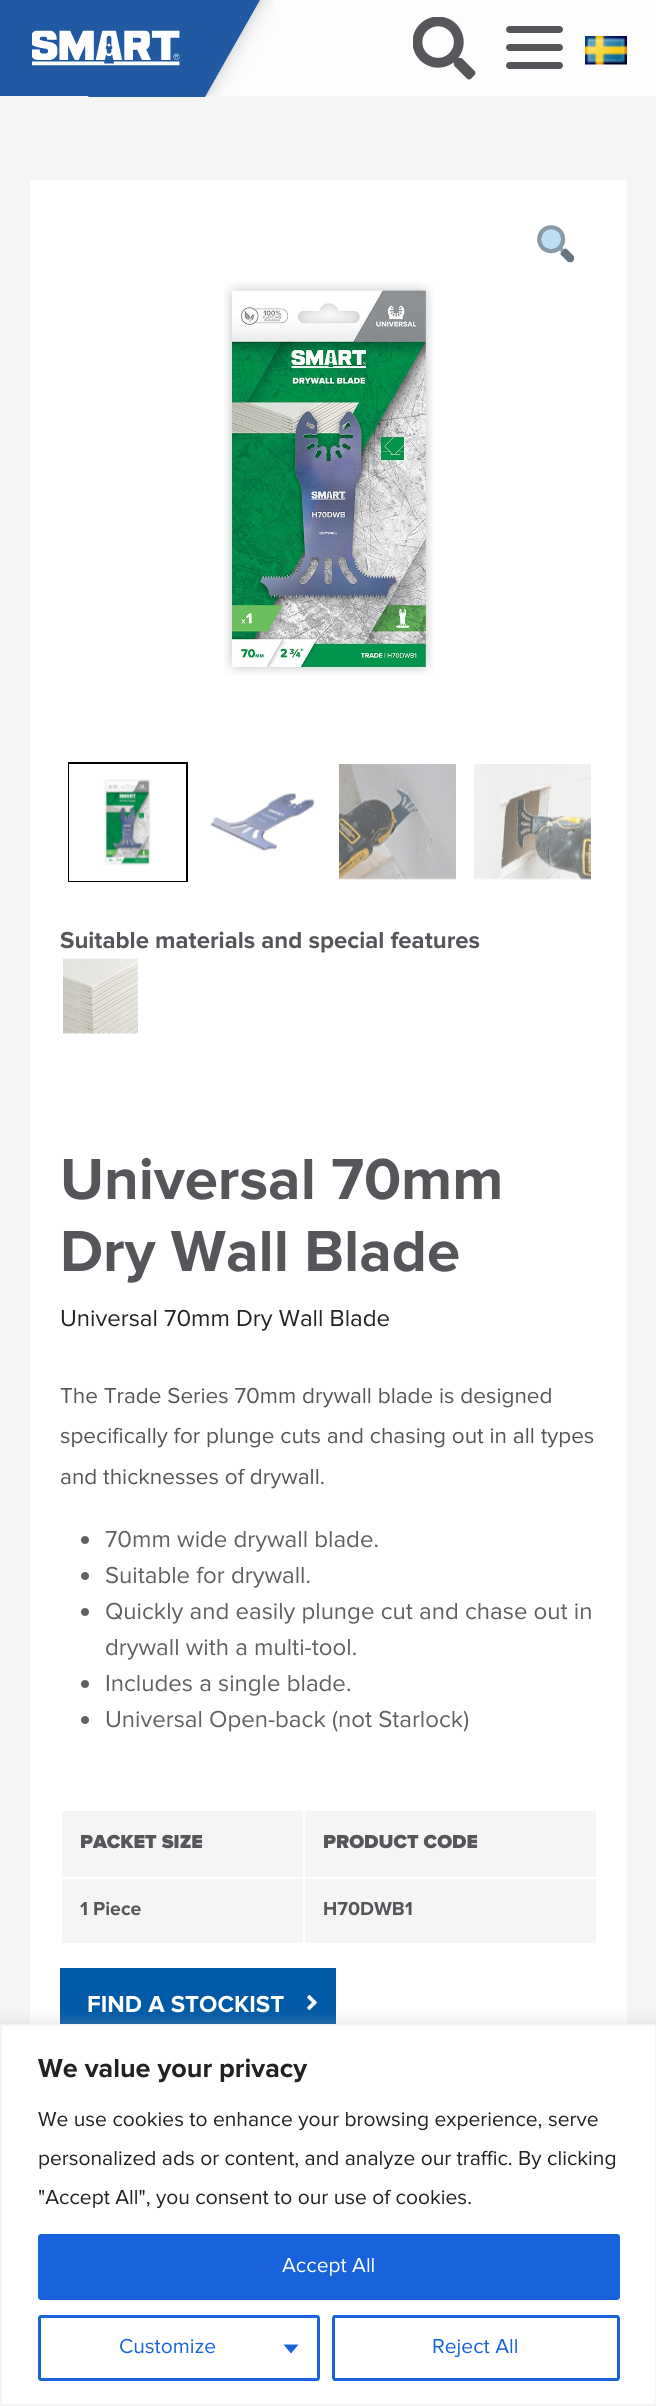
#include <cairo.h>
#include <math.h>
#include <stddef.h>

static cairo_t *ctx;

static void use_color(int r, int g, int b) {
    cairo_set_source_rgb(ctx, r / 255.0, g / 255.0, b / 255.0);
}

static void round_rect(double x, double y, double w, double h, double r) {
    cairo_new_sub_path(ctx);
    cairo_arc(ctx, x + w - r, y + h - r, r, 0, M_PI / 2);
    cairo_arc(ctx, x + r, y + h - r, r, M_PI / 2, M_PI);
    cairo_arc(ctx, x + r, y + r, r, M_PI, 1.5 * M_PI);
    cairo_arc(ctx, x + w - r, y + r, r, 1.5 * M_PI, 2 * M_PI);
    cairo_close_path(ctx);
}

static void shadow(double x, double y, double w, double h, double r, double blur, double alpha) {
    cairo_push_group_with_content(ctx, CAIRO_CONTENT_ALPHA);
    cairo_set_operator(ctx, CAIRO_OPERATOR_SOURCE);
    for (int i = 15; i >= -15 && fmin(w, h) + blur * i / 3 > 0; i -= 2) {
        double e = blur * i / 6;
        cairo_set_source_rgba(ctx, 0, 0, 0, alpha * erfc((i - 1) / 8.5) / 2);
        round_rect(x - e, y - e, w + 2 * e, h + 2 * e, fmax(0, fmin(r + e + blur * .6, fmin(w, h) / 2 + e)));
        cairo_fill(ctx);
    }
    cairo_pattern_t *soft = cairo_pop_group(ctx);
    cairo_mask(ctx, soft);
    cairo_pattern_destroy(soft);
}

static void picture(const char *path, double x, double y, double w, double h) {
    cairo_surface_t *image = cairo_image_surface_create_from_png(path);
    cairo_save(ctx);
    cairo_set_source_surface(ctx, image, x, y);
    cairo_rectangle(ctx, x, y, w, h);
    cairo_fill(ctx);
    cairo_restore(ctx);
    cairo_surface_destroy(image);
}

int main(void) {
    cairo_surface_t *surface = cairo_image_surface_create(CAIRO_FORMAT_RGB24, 656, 2406);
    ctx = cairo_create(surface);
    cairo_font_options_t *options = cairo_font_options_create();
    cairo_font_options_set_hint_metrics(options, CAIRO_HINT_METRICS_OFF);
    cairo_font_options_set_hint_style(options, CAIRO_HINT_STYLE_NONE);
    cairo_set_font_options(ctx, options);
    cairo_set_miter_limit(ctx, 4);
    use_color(245, 245, 245);
    cairo_paint(ctx);
    use_color(253, 253, 253);
    cairo_rectangle(ctx, 205, 0, 451, 96);
    cairo_fill(ctx);
    picture("img2.png", 205, 0, 70, 96);
    use_color(33, 90, 163);
    cairo_new_path(ctx);
    cairo_move_to(ctx, 143, 0);
    cairo_line_to(ctx, 260, 0);
    cairo_line_to(ctx, 205, 97);
    cairo_line_to(ctx, 88, 97);
    cairo_close_path(ctx);
    cairo_fill(ctx);
    cairo_rectangle(ctx, 0, 0, 143, 96);
    cairo_fill(ctx);
    picture("img1.png", 32, 30, 148, 36);
    picture("img3.png", 413, 17, 63, 63);
    use_color(84, 86, 90);
    round_rect(506, 26, 57, 7, 3.5);
    cairo_fill(ctx);
    round_rect(506, 44, 57, 7, 3.5);
    cairo_fill(ctx);
    round_rect(506, 62, 57, 7, 3.5);
    cairo_fill(ctx);
    picture("img4.png", 585, 36, 42, 29);
    use_color(255, 255, 255);
    cairo_rectangle(ctx, 30, 180, 597, 1844);
    cairo_fill(ctx);
    picture("img5.png", 537, 225, 38, 38);
    picture("img6.png", 224, 282, 210, 393);
    cairo_rectangle(ctx, 69, 763, 118, 118);
    use_color(0, 0, 0);
    cairo_stroke(ctx);
    picture("img7.png", 69, 764, 117, 117);
    picture("img8.png", 210, 793, 105, 58);
    picture("img9.png", 339, 764, 117, 116);
    picture("img10.png", 474, 764, 117, 116);
    cairo_select_font_face(ctx, "Proxima Nova", CAIRO_FONT_SLANT_NORMAL, CAIRO_FONT_WEIGHT_BOLD);
    cairo_set_font_size(ctx, 24);
    use_color(84, 86, 90);
    cairo_move_to(ctx, 60, 948);
    cairo_show_text(ctx, "Suitable materials and special features");
    picture("img11.png", 63, 958, 75, 76);
    cairo_set_font_size(ctx, 60);
    cairo_move_to(ctx, 60, 1199);
    cairo_show_text(ctx, "Universal 70mm");
    cairo_move_to(ctx, 60, 1271);
    cairo_show_text(ctx, "Dry Wall Blade");
    cairo_select_font_face(ctx, "Proxima Nova", CAIRO_FONT_SLANT_NORMAL, CAIRO_FONT_WEIGHT_NORMAL);
    cairo_set_font_size(ctx, 24);
    use_color(33, 37, 41);
    cairo_move_to(ctx, 60, 1326);
    cairo_show_text(ctx, "Universal 70mm Dry Wall Blade");
    cairo_set_font_size(ctx, 22.5);
    use_color(84, 86, 90);
    cairo_move_to(ctx, 60, 1403);
    cairo_show_text(ctx, "The Trade Series 70mm drywall blade is designed");
    cairo_move_to(ctx, 60, 1443);
    cairo_show_text(ctx, "specifically for plunge cuts and chasing out in all types");
    cairo_move_to(ctx, 60, 1484);
    cairo_show_text(ctx, "and thicknesses of drywall.");
    use_color(98, 97, 97);
    cairo_new_path(ctx);
    cairo_arc(ctx, 85, 1540, 4, 0, 2 * M_PI);
    cairo_fill(ctx);
    cairo_set_font_size(ctx, 24);
    cairo_move_to(ctx, 105, 1547);
    cairo_show_text(ctx, "70mm wide drywall blade.");
    cairo_new_path(ctx);
    cairo_arc(ctx, 85, 1576, 4, 0, 2 * M_PI);
    cairo_fill(ctx);
    cairo_move_to(ctx, 105, 1583);
    cairo_show_text(ctx, "Suitable for drywall.");
    cairo_new_path(ctx);
    cairo_arc(ctx, 85, 1612, 4, 0, 2 * M_PI);
    cairo_fill(ctx);
    cairo_move_to(ctx, 105, 1619);
    cairo_show_text(ctx, "Quickly and easily plunge cut and chase out in");
    cairo_move_to(ctx, 105, 1655);
    cairo_show_text(ctx, "drywall with a multi-tool.");
    cairo_new_path(ctx);
    cairo_arc(ctx, 85, 1684, 4, 0, 2 * M_PI);
    cairo_fill(ctx);
    cairo_move_to(ctx, 105, 1691);
    cairo_show_text(ctx, "Includes a single blade.");
    cairo_new_path(ctx);
    cairo_arc(ctx, 85, 1720, 4, 0, 2 * M_PI);
    cairo_fill(ctx);
    cairo_move_to(ctx, 105, 1727);
    cairo_show_text(ctx, "Universal Open-back (not Starlock)");
    use_color(245, 245, 245);
    cairo_rectangle(ctx, 62, 1811, 241, 66);
    cairo_fill(ctx);
    cairo_select_font_face(ctx, "Proxima Nova Black", CAIRO_FONT_SLANT_NORMAL, CAIRO_FONT_WEIGHT_NORMAL);
    cairo_set_font_size(ctx, 19.5);
    use_color(84, 86, 90);
    cairo_move_to(ctx, 80, 1848);
    cairo_show_text(ctx, "PACKET SIZE");
    use_color(245, 245, 245);
    cairo_rectangle(ctx, 305, 1811, 291, 66);
    cairo_fill(ctx);
    use_color(84, 86, 90);
    cairo_move_to(ctx, 323, 1848);
    cairo_show_text(ctx, "PRODUCT CODE");
    use_color(245, 245, 245);
    cairo_rectangle(ctx, 62, 1879, 241, 64);
    cairo_fill(ctx);
    cairo_select_font_face(ctx, "Proxima Nova", CAIRO_FONT_SLANT_NORMAL, CAIRO_FONT_WEIGHT_BOLD);
    use_color(84, 86, 90);
    cairo_move_to(ctx, 80, 1915);
    cairo_show_text(ctx, "1 Piece");
    use_color(245, 245, 245);
    cairo_rectangle(ctx, 305, 1879, 291, 64);
    cairo_fill(ctx);
    use_color(84, 86, 90);
    cairo_move_to(ctx, 323, 1915);
    cairo_show_text(ctx, "H70DWB1");
    use_color(0, 90, 167);
    cairo_rectangle(ctx, 60, 1968, 276, 56);
    cairo_fill(ctx);
    cairo_set_font_size(ctx, 24);
    use_color(255, 255, 255);
    cairo_move_to(ctx, 87, 2012);
    cairo_show_text(ctx, "FIND A STOCKIST");
    picture("img12.png", 307, 1995, 10, 15);
    use_color(172, 171, 171);
    shadow(0, 2022, 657, 383, 0, 7.5, 0.3);
    use_color(255, 255, 255);
    cairo_rectangle(ctx, 1, 2025, 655, 380);
    cairo_fill_preserve(ctx);
    use_color(244, 244, 244);
    cairo_stroke(ctx);
    cairo_set_font_size(ctx, 27);
    use_color(33, 33, 33);
    cairo_move_to(ctx, 38, 2077);
    cairo_show_text(ctx, "We value your privacy");
    cairo_select_font_face(ctx, "Proxima Nova", CAIRO_FONT_SLANT_NORMAL, CAIRO_FONT_WEIGHT_NORMAL);
    cairo_set_font_size(ctx, 21);
    cairo_move_to(ctx, 38, 2126);
    cairo_show_text(ctx, "We use cookies to enhance your browsing experience, serve");
    cairo_move_to(ctx, 38, 2165);
    cairo_show_text(ctx, "personalized ads or content, and analyze our traffic. By clicking");
    cairo_move_to(ctx, 38, 2204);
    cairo_show_text(ctx, "\"Accept All\", you consent to our use of cookies.");
    use_color(24, 99, 220);
    round_rect(39.5, 2235.5, 579, 63, 1.5);
    cairo_fill_preserve(ctx);
    cairo_set_line_width(ctx, 3);
    cairo_stroke(ctx);
    use_color(255, 255, 255);
    cairo_move_to(ctx, 282, 2272);
    cairo_show_text(ctx, "Accept All");
    round_rect(39.5, 2316.5, 279, 63, 1.5);
    use_color(24, 99, 220);
    cairo_stroke(ctx);
    cairo_move_to(ctx, 119, 2353);
    cairo_show_text(ctx, "Customize");
    cairo_new_path(ctx);
    cairo_move_to(ctx, 283.5, 2344.5);
    cairo_line_to(ctx, 298.5, 2344.5);
    cairo_line_to(ctx, 291, 2353.5);
    cairo_close_path(ctx);
    cairo_fill(ctx);
    round_rect(333.5, 2316.5, 285, 63, 1.5);
    cairo_stroke(ctx);
    cairo_move_to(ctx, 432, 2353);
    cairo_show_text(ctx, "Reject All");
    cairo_surface_write_to_png(surface, "result.png");
    cairo_font_options_destroy(options);
    cairo_destroy(ctx);
    cairo_surface_destroy(surface);
    return 0;
}
